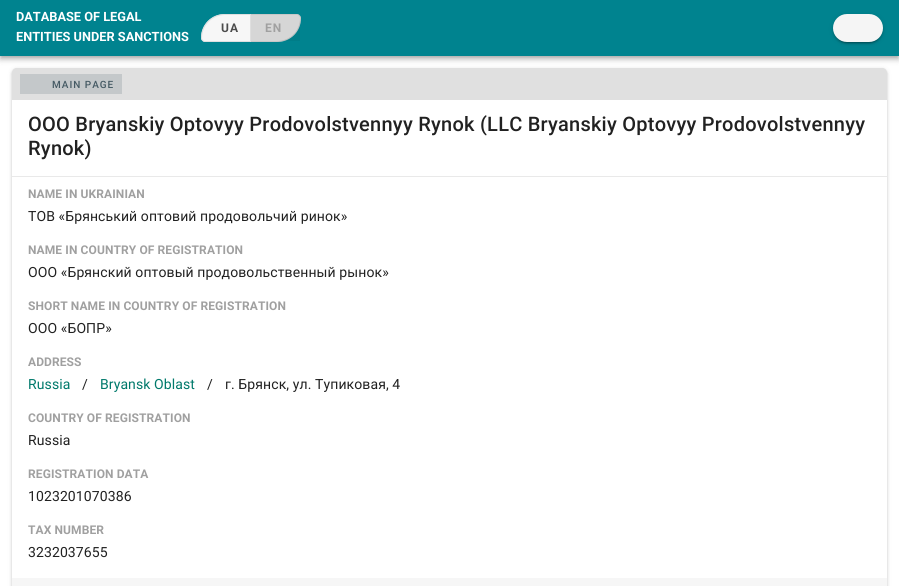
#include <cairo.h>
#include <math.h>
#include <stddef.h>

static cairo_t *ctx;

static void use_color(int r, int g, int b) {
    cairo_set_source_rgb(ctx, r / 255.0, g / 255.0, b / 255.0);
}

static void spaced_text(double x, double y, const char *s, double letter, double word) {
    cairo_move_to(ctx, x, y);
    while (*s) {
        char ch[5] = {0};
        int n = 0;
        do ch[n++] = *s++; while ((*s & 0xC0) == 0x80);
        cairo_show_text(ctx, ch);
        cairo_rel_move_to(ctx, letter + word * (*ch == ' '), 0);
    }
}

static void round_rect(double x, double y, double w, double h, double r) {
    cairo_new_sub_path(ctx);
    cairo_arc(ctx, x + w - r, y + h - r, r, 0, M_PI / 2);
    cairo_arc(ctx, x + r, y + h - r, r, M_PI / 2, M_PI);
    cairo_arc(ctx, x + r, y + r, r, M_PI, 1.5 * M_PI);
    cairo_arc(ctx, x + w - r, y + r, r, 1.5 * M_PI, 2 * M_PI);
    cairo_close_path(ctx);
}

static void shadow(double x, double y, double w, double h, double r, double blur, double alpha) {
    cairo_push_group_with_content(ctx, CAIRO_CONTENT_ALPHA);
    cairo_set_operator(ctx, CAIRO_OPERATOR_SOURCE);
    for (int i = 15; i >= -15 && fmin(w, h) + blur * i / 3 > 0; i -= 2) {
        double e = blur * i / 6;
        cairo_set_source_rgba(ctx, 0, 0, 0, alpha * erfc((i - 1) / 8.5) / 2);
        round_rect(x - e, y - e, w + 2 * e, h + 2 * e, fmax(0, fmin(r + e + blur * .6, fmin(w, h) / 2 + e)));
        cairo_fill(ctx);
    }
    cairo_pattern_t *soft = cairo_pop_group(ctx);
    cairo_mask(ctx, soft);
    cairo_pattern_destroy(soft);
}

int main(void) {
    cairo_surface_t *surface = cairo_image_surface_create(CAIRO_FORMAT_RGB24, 899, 586);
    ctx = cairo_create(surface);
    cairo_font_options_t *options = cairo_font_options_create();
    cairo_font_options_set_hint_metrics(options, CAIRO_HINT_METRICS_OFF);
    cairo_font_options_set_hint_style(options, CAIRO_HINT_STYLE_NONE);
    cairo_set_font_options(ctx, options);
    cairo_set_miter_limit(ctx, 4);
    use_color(255, 255, 255);
    cairo_paint(ctx);
    use_color(0, 0, 0);
    shadow(12, 69, 875, 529, 4, 2.5, 0.12);
    shadow(12, 70, 875, 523, 4, 1, 0.14);
    use_color(255, 255, 255);
    round_rect(12, 68, 875, 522, 4);
    cairo_fill(ctx);
    use_color(224, 224, 224);
    cairo_new_path(ctx);
    cairo_move_to(ctx, 16, 68);
    cairo_line_to(ctx, 883, 68);
    cairo_curve_to(ctx, 885, 68, 887, 70, 887, 72);
    cairo_line_to(ctx, 887, 100);
    cairo_line_to(ctx, 12, 100);
    cairo_line_to(ctx, 12, 72);
    cairo_curve_to(ctx, 12, 70, 14, 68, 16, 68);
    cairo_close_path(ctx);
    cairo_fill(ctx);
    use_color(0, 0, 0);
    shadow(0, 1, 899, 56, 0, 5, 0.12);
    shadow(0, 4, 899, 56, 0, 2.5, 0.14);
    shadow(1, 3, 897, 54, 0, 2, 0.2);
    use_color(0, 131, 143);
    cairo_rectangle(ctx, 0, 0, 899, 56);
    cairo_fill(ctx);
    cairo_select_font_face(ctx, "Roboto", CAIRO_FONT_SLANT_NORMAL, CAIRO_FONT_WEIGHT_BOLD);
    cairo_set_font_size(ctx, 12.75);
    use_color(255, 255, 255);
    cairo_move_to(ctx, 16, 21);
    cairo_show_text(ctx, "DATABASE OF LEGAL");
    cairo_move_to(ctx, 16, 41);
    cairo_show_text(ctx, "ENTITIES UNDER SANCTIONS");
    cairo_new_path(ctx);
    cairo_move_to(ctx, 225, 14);
    cairo_line_to(ctx, 297, 14);
    cairo_curve_to(ctx, 299, 14, 301, 16, 301, 18);
    cairo_curve_to(ctx, 301, 31.5, 290.5, 42, 277, 42);
    cairo_line_to(ctx, 205, 42);
    cairo_curve_to(ctx, 203, 42, 201, 40, 201, 38);
    cairo_curve_to(ctx, 201, 24.5, 211.5, 14, 225, 14);
    cairo_close_path(ctx);
    cairo_fill(ctx);
    cairo_set_source_rgba(ctx, 0.961, 0.961, 0.961, 0.8);
    cairo_new_path(ctx);
    cairo_move_to(ctx, 225, 14);
    cairo_line_to(ctx, 251, 14);
    cairo_line_to(ctx, 251, 42);
    cairo_line_to(ctx, 205, 42);
    cairo_curve_to(ctx, 203, 42, 201, 40, 201, 38);
    cairo_curve_to(ctx, 201, 24.5, 211.5, 14, 225, 14);
    cairo_close_path(ctx);
    cairo_fill(ctx);
    cairo_new_path(ctx);
    cairo_move_to(ctx, 225, 14.5);
    cairo_line_to(ctx, 250.5, 14.5);
    cairo_line_to(ctx, 250.5, 41.5);
    cairo_line_to(ctx, 205, 41.5);
    cairo_curve_to(ctx, 203, 41.5, 201.5, 40, 201.5, 38);
    cairo_curve_to(ctx, 201.5, 25, 212, 14.5, 225, 14.5);
    cairo_close_path(ctx);
    cairo_set_source_rgba(ctx, 0, 0, 0, 0.1);
    cairo_set_line_width(ctx, 1);
    cairo_stroke(ctx);
    cairo_set_font_size(ctx, 12);
    use_color(76, 76, 76);
    spaced_text(221, 32, "UA", 1, 0);
    cairo_set_source_rgba(ctx, 0, 0, 0, 0.12);
    cairo_new_path(ctx);
    cairo_move_to(ctx, 251, 14);
    cairo_line_to(ctx, 297, 14);
    cairo_curve_to(ctx, 299, 14, 301, 16, 301, 18);
    cairo_curve_to(ctx, 301, 31.5, 290.5, 42, 277, 42);
    cairo_line_to(ctx, 251, 42);
    cairo_close_path(ctx);
    cairo_fill(ctx);
    cairo_set_fill_rule(ctx, CAIRO_FILL_RULE_EVEN_ODD);
    cairo_new_path(ctx);
    cairo_move_to(ctx, 251, 14);
    cairo_line_to(ctx, 297, 14);
    cairo_curve_to(ctx, 299, 14, 301, 16, 301, 18);
    cairo_curve_to(ctx, 301, 31, 290, 42, 277, 42);
    cairo_line_to(ctx, 251, 42);
    cairo_close_path(ctx);
    cairo_move_to(ctx, 251, 15);
    cairo_line_to(ctx, 297, 15);
    cairo_curve_to(ctx, 299, 15, 300, 16, 300, 18);
    cairo_curve_to(ctx, 300, 31, 290, 41, 277, 41);
    cairo_line_to(ctx, 251, 41);
    cairo_close_path(ctx);
    cairo_fill(ctx);
    cairo_set_source_rgba(ctx, 0, 0, 0, 0.05);
    cairo_rectangle(ctx, 251, 15, 49, 26);
    cairo_fill(ctx);
    use_color(160, 160, 160);
    spaced_text(265, 32, "EN", 1, 0);
    use_color(0, 0, 0);
    shadow(833, 15, 50, 28, 14, 2.5, 0.12);
    shadow(833, 16, 50, 28, 14, 1, 0.14);
    shadow(835, 19, 46, 24, 12, 0.5, 0.2);
    use_color(245, 245, 245);
    round_rect(833, 14, 50, 28, 14);
    cairo_fill(ctx);
    use_color(196, 200, 202);
    cairo_rectangle(ctx, 20, 74, 102, 20);
    cairo_fill(ctx);
    cairo_select_font_face(ctx, "Roboto Medium", CAIRO_FONT_SLANT_NORMAL, CAIRO_FONT_WEIGHT_NORMAL);
    cairo_set_font_size(ctx, 10);
    use_color(69, 90, 100);
    spaced_text(52, 88, "MAIN PAGE", 1, 0);
    cairo_set_font_size(ctx, 20);
    use_color(33, 33, 33);
    spaced_text(28, 131, "OOO Bryanskiy Optovyy Prodovolstvennyy Rynok (LLC Bryanskiy Optovyy Prodovolstvennyy", 0.25, 0);
    spaced_text(28, 155, "Rynok)", 0.25, 0);
    use_color(233, 233, 233);
    cairo_rectangle(ctx, 12, 176, 875, 1);
    cairo_fill(ctx);
    cairo_select_font_face(ctx, "Roboto", CAIRO_FONT_SLANT_NORMAL, CAIRO_FONT_WEIGHT_BOLD);
    cairo_set_font_size(ctx, 12);
    use_color(160, 160, 160);
    spaced_text(28, 198, "NAME IN UKRAINIAN", 0.1, 0);
    cairo_select_font_face(ctx, "Roboto", CAIRO_FONT_SLANT_NORMAL, CAIRO_FONT_WEIGHT_NORMAL);
    cairo_set_font_size(ctx, 14);
    use_color(33, 33, 33);
    spaced_text(28, 221, "ТОВ «Брянський оптовий продовольчий ринок»", 0.1, 0);
    cairo_select_font_face(ctx, "Roboto", CAIRO_FONT_SLANT_NORMAL, CAIRO_FONT_WEIGHT_BOLD);
    cairo_set_font_size(ctx, 12);
    use_color(160, 160, 160);
    spaced_text(28, 254, "NAME IN COUNTRY OF REGISTRATION", 0.1, 0);
    cairo_select_font_face(ctx, "Roboto", CAIRO_FONT_SLANT_NORMAL, CAIRO_FONT_WEIGHT_NORMAL);
    cairo_set_font_size(ctx, 14);
    use_color(33, 33, 33);
    spaced_text(28, 277, "ООО «Брянский оптовый продовольственный рынок»", 0.1, 0);
    cairo_select_font_face(ctx, "Roboto", CAIRO_FONT_SLANT_NORMAL, CAIRO_FONT_WEIGHT_BOLD);
    cairo_set_font_size(ctx, 12);
    use_color(160, 160, 160);
    spaced_text(28, 310, "SHORT NAME IN COUNTRY OF REGISTRATION", 0.1, 0);
    cairo_select_font_face(ctx, "Roboto", CAIRO_FONT_SLANT_NORMAL, CAIRO_FONT_WEIGHT_NORMAL);
    cairo_set_font_size(ctx, 14);
    use_color(33, 33, 33);
    spaced_text(28, 333, "ООО «БОПР»", 0.1, 0);
    cairo_select_font_face(ctx, "Roboto", CAIRO_FONT_SLANT_NORMAL, CAIRO_FONT_WEIGHT_BOLD);
    cairo_set_font_size(ctx, 12);
    use_color(160, 160, 160);
    spaced_text(28, 366, "ADDRESS", 0.1, 0);
    cairo_select_font_face(ctx, "Roboto", CAIRO_FONT_SLANT_NORMAL, CAIRO_FONT_WEIGHT_NORMAL);
    cairo_set_font_size(ctx, 14);
    use_color(0, 121, 107);
    spaced_text(28, 389, "Russia", 0.1, 0);
    use_color(33, 33, 33);
    spaced_text(82, 389, "/", 0.1, 0);
    use_color(0, 121, 107);
    spaced_text(100, 389, "Bryansk Oblast", 0.1, 0);
    use_color(33, 33, 33);
    spaced_text(207, 389, "/", 0.1, 0);
    spaced_text(225, 389, "г. Брянск, ул. Тупиковая, 4", 0.1, 0);
    cairo_select_font_face(ctx, "Roboto", CAIRO_FONT_SLANT_NORMAL, CAIRO_FONT_WEIGHT_BOLD);
    cairo_set_font_size(ctx, 12);
    use_color(160, 160, 160);
    spaced_text(28, 422, "COUNTRY OF REGISTRATION", 0.1, 0);
    cairo_select_font_face(ctx, "Roboto", CAIRO_FONT_SLANT_NORMAL, CAIRO_FONT_WEIGHT_NORMAL);
    cairo_set_font_size(ctx, 14);
    use_color(33, 33, 33);
    spaced_text(28, 445, "Russia", 0.1, 0);
    cairo_select_font_face(ctx, "Roboto", CAIRO_FONT_SLANT_NORMAL, CAIRO_FONT_WEIGHT_BOLD);
    cairo_set_font_size(ctx, 12);
    use_color(160, 160, 160);
    spaced_text(28, 478, "REGISTRATION DATA", 0.1, 0);
    cairo_select_font_face(ctx, "Roboto", CAIRO_FONT_SLANT_NORMAL, CAIRO_FONT_WEIGHT_NORMAL);
    cairo_set_font_size(ctx, 14);
    use_color(33, 33, 33);
    spaced_text(28, 501, "1023201070386", 0.1, 0);
    cairo_select_font_face(ctx, "Roboto", CAIRO_FONT_SLANT_NORMAL, CAIRO_FONT_WEIGHT_BOLD);
    cairo_set_font_size(ctx, 12);
    use_color(160, 160, 160);
    spaced_text(28, 534, "TAX NUMBER", 0.1, 0);
    cairo_select_font_face(ctx, "Roboto", CAIRO_FONT_SLANT_NORMAL, CAIRO_FONT_WEIGHT_NORMAL);
    cairo_set_font_size(ctx, 14);
    use_color(33, 33, 33);
    spaced_text(28, 557, "3232037655", 0.1, 0);
    use_color(246, 246, 246);
    cairo_rectangle(ctx, 12, 578, 875, 8);
    cairo_fill(ctx);
    cairo_surface_write_to_png(surface, "result.png");
    cairo_font_options_destroy(options);
    cairo_destroy(ctx);
    cairo_surface_destroy(surface);
    return 0;
}
